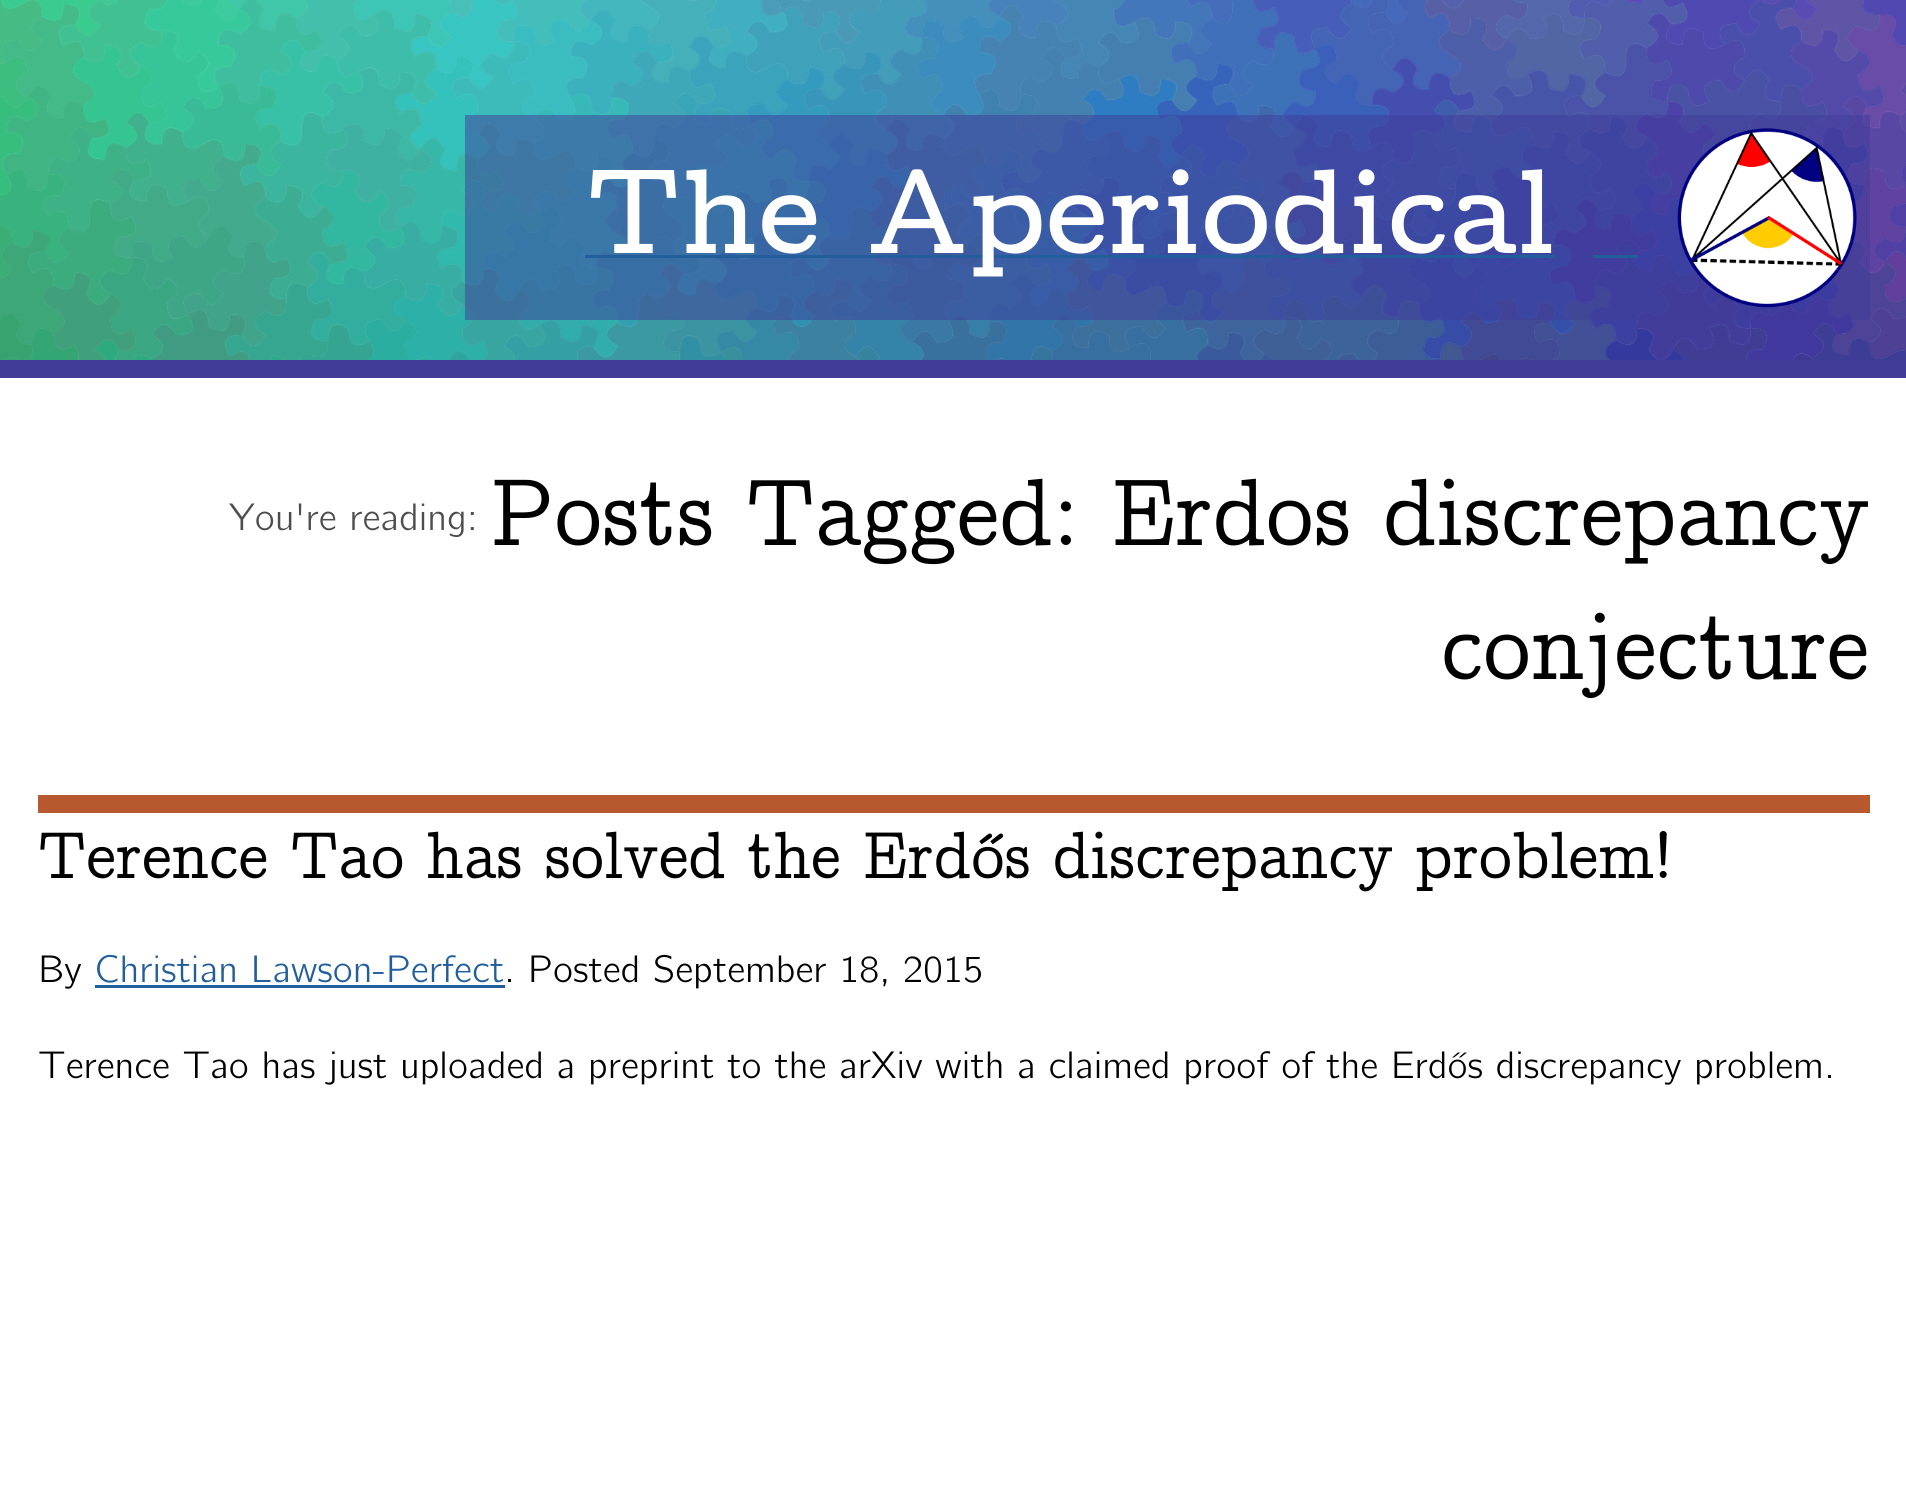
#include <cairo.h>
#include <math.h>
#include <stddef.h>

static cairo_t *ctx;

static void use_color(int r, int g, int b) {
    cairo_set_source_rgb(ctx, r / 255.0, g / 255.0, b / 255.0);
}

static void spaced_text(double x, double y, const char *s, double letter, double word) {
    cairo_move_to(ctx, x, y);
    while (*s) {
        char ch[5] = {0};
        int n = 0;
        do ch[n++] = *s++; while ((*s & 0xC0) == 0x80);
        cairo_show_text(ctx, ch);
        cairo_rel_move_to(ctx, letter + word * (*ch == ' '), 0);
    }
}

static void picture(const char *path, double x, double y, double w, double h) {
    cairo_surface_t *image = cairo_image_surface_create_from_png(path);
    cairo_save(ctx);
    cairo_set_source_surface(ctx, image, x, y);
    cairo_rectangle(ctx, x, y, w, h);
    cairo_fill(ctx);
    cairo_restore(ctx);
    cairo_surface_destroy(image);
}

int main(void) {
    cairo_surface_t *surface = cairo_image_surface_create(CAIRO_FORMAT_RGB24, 1906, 1503);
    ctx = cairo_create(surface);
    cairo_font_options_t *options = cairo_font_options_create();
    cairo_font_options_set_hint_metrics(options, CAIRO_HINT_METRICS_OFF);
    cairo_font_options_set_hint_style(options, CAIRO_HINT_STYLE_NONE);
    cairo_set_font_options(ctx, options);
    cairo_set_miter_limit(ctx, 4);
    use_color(255, 255, 255);
    cairo_paint(ctx);
    picture("img1.png", 0, 0, 1906, 360);
    use_color(65, 60, 154);
    cairo_rectangle(ctx, 0, 360, 1906, 18);
    cairo_fill(ctx);
    cairo_set_source_rgba(ctx, 0.255, 0.235, 0.604, 0.5);
    cairo_rectangle(ctx, 465, 115, 1405, 205);
    cairo_fill(ctx);
    use_color(34, 94, 155);
    cairo_rectangle(ctx, 585, 255, 970, 3);
    cairo_fill(ctx);
    cairo_select_font_face(ctx, "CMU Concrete", CAIRO_FONT_SLANT_NORMAL, CAIRO_FONT_WEIGHT_BOLD);
    cairo_set_font_size(ctx, 120.5);
    use_color(255, 255, 255);
    cairo_move_to(ctx, 586, 253);
    cairo_show_text(ctx, "The Aperiodical");
    use_color(34, 94, 155);
    cairo_rectangle(ctx, 1593, 255, 45, 3);
    cairo_fill(ctx);
    picture("img2.png", 1677, 128, 180, 180);
    cairo_select_font_face(ctx, "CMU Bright", CAIRO_FONT_SLANT_NORMAL, CAIRO_FONT_WEIGHT_NORMAL);
    cairo_set_font_size(ctx, 38.15);
    use_color(77, 77, 77);
    cairo_move_to(ctx, 229, 530);
    cairo_show_text(ctx, "You're reading:");
    cairo_select_font_face(ctx, "CMU Concrete", CAIRO_FONT_SLANT_NORMAL, CAIRO_FONT_WEIGHT_NORMAL);
    cairo_set_font_size(ctx, 95.4);
    use_color(0, 0, 0);
    cairo_move_to(ctx, 490, 545);
    cairo_show_text(ctx, "Posts Tagged: Erdos discrepancy");
    cairo_move_to(ctx, 1441, 679);
    cairo_show_text(ctx, "conjecture");
    use_color(183, 89, 46);
    cairo_rectangle(ctx, 38, 795, 1832, 18);
    cairo_fill(ctx);
    cairo_set_font_size(ctx, 66.75);
    use_color(0, 0, 0);
    spaced_text(38, 878, "Terence Tao has solved the Erdős discrepancy problem!", 0, -0.25);
    cairo_select_font_face(ctx, "CMU Bright", CAIRO_FONT_SLANT_NORMAL, CAIRO_FONT_WEIGHT_NORMAL);
    cairo_set_font_size(ctx, 38.15);
    cairo_move_to(ctx, 38, 982);
    cairo_show_text(ctx, "By");
    use_color(34, 94, 155);
    cairo_move_to(ctx, 94, 982);
    cairo_show_text(ctx, "Christian Lawson-Perfect");
    cairo_rectangle(ctx, 95, 985, 410, 3);
    cairo_fill(ctx);
    use_color(0, 0, 0);
    cairo_move_to(ctx, 504, 982);
    cairo_show_text(ctx, ". Posted September 18, 2015");
    cairo_move_to(ctx, 38, 1078);
    cairo_show_text(ctx, "Terence Tao has just uploaded a preprint to the arXiv with a claimed proof of the Erdős discrepancy problem.");
    cairo_surface_write_to_png(surface, "result.png");
    cairo_font_options_destroy(options);
    cairo_destroy(ctx);
    cairo_surface_destroy(surface);
    return 0;
}
